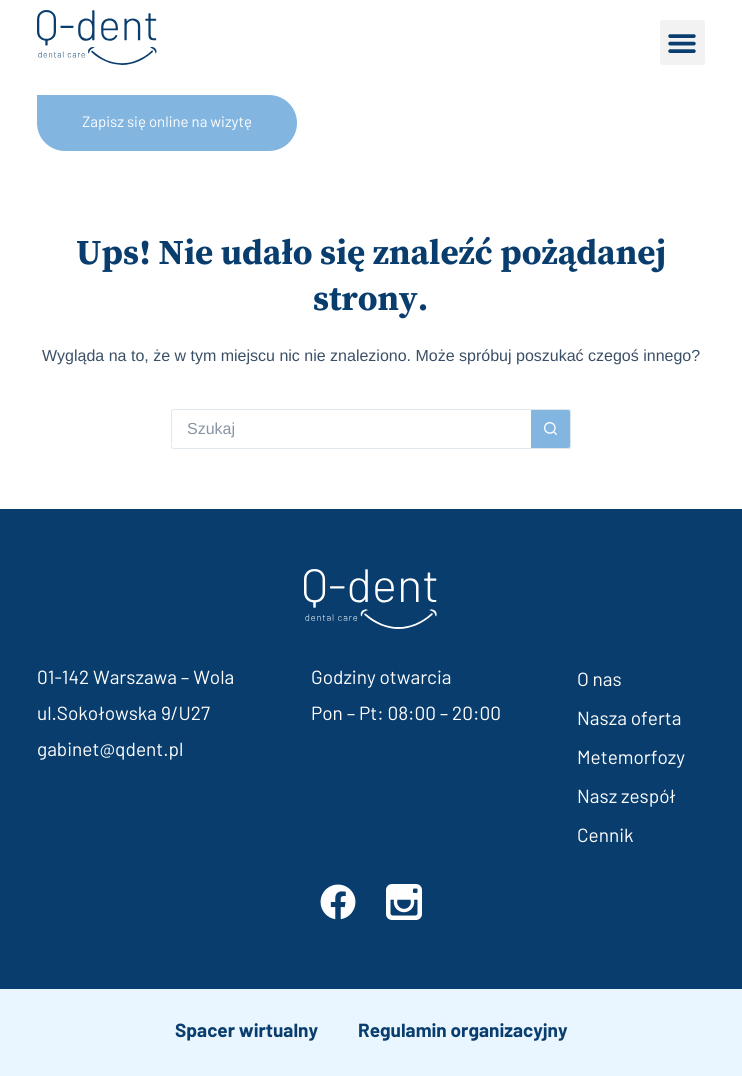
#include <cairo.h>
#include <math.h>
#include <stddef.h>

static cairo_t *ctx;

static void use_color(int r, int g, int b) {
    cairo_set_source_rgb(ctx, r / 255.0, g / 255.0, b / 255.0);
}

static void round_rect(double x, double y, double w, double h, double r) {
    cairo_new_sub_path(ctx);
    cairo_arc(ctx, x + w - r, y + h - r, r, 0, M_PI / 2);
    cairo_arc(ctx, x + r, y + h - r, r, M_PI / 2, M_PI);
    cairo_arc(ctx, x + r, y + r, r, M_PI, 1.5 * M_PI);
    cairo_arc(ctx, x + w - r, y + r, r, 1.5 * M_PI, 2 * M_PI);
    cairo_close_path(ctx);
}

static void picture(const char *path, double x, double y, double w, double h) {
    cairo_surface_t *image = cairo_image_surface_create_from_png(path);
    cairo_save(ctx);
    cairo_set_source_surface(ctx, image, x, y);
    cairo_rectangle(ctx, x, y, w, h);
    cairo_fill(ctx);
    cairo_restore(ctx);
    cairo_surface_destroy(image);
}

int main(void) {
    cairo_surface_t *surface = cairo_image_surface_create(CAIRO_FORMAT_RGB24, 742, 1076);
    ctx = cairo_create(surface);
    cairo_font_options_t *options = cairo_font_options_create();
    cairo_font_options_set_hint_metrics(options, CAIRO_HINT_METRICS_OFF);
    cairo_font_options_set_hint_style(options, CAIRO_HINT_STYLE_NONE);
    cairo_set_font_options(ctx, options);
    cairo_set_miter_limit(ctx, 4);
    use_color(255, 255, 255);
    cairo_paint(ctx);
    picture("img1.png", 37, 10, 120, 55);
    use_color(242, 242, 242);
    round_rect(660, 20, 45, 45, 3);
    cairo_fill(ctx);
    picture("img2.png", 668, 34, 28, 19);
    use_color(131, 181, 225);
    cairo_new_path(ctx);
    cairo_move_to(ctx, 37, 95);
    cairo_line_to(ctx, 269, 95);
    cairo_curve_to(ctx, 284.5, 95, 297, 107.5, 297, 123);
    cairo_curve_to(ctx, 297, 138.5, 284.5, 151, 269, 151);
    cairo_line_to(ctx, 65, 151);
    cairo_curve_to(ctx, 49.5, 151, 37, 138.5, 37, 123);
    cairo_close_path(ctx);
    cairo_fill(ctx);
    cairo_select_font_face(ctx, "Barlow", CAIRO_FONT_SLANT_NORMAL, CAIRO_FONT_WEIGHT_NORMAL);
    cairo_set_font_size(ctx, 15);
    use_color(255, 255, 255);
    cairo_move_to(ctx, 82, 127);
    cairo_show_text(ctx, "Zapisz się online na wizytę");
    cairo_select_font_face(ctx, "Source Serif Pro", CAIRO_FONT_SLANT_NORMAL, CAIRO_FONT_WEIGHT_BOLD);
    cairo_set_font_size(ctx, 35);
    use_color(9, 61, 109);
    cairo_move_to(ctx, 76, 264);
    cairo_show_text(ctx, "Ups! Nie udało się znaleźć pożądanej");
    cairo_move_to(ctx, 313, 310);
    cairo_show_text(ctx, "strony.");
    cairo_select_font_face(ctx, "Liberation Sans", CAIRO_FONT_SLANT_NORMAL, CAIRO_FONT_WEIGHT_NORMAL);
    cairo_set_font_size(ctx, 16);
    use_color(58, 79, 102);
    cairo_move_to(ctx, 42, 361);
    cairo_show_text(ctx, "Wygląda na to, że w tym miejscu nic nie znaleziono. Może spróbuj poszukać czegoś innego?");
    use_color(225, 232, 237);
    cairo_set_fill_rule(ctx, CAIRO_FILL_RULE_EVEN_ODD);
    cairo_new_path(ctx);
    cairo_move_to(ctx, 174, 409);
    cairo_line_to(ctx, 531, 409);
    cairo_line_to(ctx, 531, 449);
    cairo_line_to(ctx, 174, 449);
    cairo_curve_to(ctx, 172, 449, 171, 448, 171, 446);
    cairo_line_to(ctx, 171, 412);
    cairo_curve_to(ctx, 171, 410, 172, 409, 174, 409);
    cairo_close_path(ctx);
    cairo_move_to(ctx, 174, 410);
    cairo_line_to(ctx, 531, 410);
    cairo_line_to(ctx, 531, 448);
    cairo_line_to(ctx, 173, 448);
    cairo_curve_to(ctx, 171, 446, 172, 441, 172, 440);
    cairo_line_to(ctx, 172, 412);
    cairo_line_to(ctx, 173, 410);
    cairo_close_path(ctx);
    cairo_fill(ctx);
    use_color(137, 149, 163);
    cairo_move_to(ctx, 187, 434);
    cairo_show_text(ctx, "Szukaj");
    use_color(131, 181, 225);
    cairo_new_path(ctx);
    cairo_move_to(ctx, 531, 409);
    cairo_line_to(ctx, 568, 409);
    cairo_curve_to(ctx, 569.5, 409, 571, 410.5, 571, 412);
    cairo_line_to(ctx, 571, 446);
    cairo_curve_to(ctx, 571, 447.5, 569.5, 449, 568, 449);
    cairo_line_to(ctx, 531, 449);
    cairo_close_path(ctx);
    cairo_fill(ctx);
    use_color(225, 232, 237);
    cairo_new_path(ctx);
    cairo_move_to(ctx, 531, 409);
    cairo_line_to(ctx, 568, 409);
    cairo_curve_to(ctx, 570, 409, 571, 410, 571, 412);
    cairo_line_to(ctx, 571, 446);
    cairo_curve_to(ctx, 571, 448, 570, 449, 568, 449);
    cairo_line_to(ctx, 531, 449);
    cairo_close_path(ctx);
    cairo_move_to(ctx, 531, 410);
    cairo_line_to(ctx, 568, 410);
    cairo_curve_to(ctx, 569, 410, 570, 411, 570, 412);
    cairo_line_to(ctx, 570, 446);
    cairo_curve_to(ctx, 570, 447, 569, 448, 568, 448);
    cairo_line_to(ctx, 531, 448);
    cairo_close_path(ctx);
    cairo_fill(ctx);
    picture("img3.png", 544, 422, 13, 13);
    cairo_new_path(ctx);
    cairo_move_to(ctx, 546, 435.5);
    cairo_curve_to(ctx, 542.5, 433.5, 541.5, 429, 543.5, 425);
    use_color(131, 181, 225);
    cairo_set_line_width(ctx, 1.5);
    cairo_set_line_cap(ctx, CAIRO_LINE_CAP_ROUND);
    cairo_stroke(ctx);
    use_color(9, 61, 109);
    cairo_rectangle(ctx, 0, 509, 742, 480);
    cairo_fill(ctx);
    picture("img4.png", 304, 569, 133, 60);
    cairo_select_font_face(ctx, "Barlow", CAIRO_FONT_SLANT_NORMAL, CAIRO_FONT_WEIGHT_NORMAL);
    cairo_set_font_size(ctx, 19);
    use_color(255, 255, 255);
    cairo_move_to(ctx, 37, 684);
    cairo_show_text(ctx, "01-142 Warszawa – Wola");
    cairo_move_to(ctx, 37, 720);
    cairo_show_text(ctx, "ul.Sokołowska 9/U27");
    cairo_move_to(ctx, 37, 756);
    cairo_show_text(ctx, "gabinet@qdent.pl");
    cairo_move_to(ctx, 311, 684);
    cairo_show_text(ctx, "Godziny otwarcia");
    cairo_move_to(ctx, 311, 720);
    cairo_show_text(ctx, "Pon – Pt: 08:00 – 20:00");
    cairo_move_to(ctx, 577, 686);
    cairo_show_text(ctx, "O nas");
    cairo_move_to(ctx, 577, 725);
    cairo_show_text(ctx, "Nasza oferta");
    cairo_move_to(ctx, 577, 764);
    cairo_show_text(ctx, "Metemorfozy");
    cairo_move_to(ctx, 577, 803);
    cairo_show_text(ctx, "Nasz zespół");
    cairo_move_to(ctx, 577, 842);
    cairo_show_text(ctx, "Cennik");
    picture("img5.png", 320, 884, 36, 36);
    picture("img6.png", 386, 884, 36, 36);
    use_color(233, 245, 255);
    cairo_rectangle(ctx, 0, 989, 742, 87);
    cairo_fill(ctx);
    cairo_select_font_face(ctx, "Barlow", CAIRO_FONT_SLANT_NORMAL, CAIRO_FONT_WEIGHT_BOLD);
    use_color(9, 61, 109);
    cairo_move_to(ctx, 175, 1037);
    cairo_show_text(ctx, "Spacer wirtualny");
    cairo_move_to(ctx, 358, 1037);
    cairo_show_text(ctx, "Regulamin organizacyjny");
    cairo_surface_write_to_png(surface, "result.png");
    cairo_font_options_destroy(options);
    cairo_destroy(ctx);
    cairo_surface_destroy(surface);
    return 0;
}
